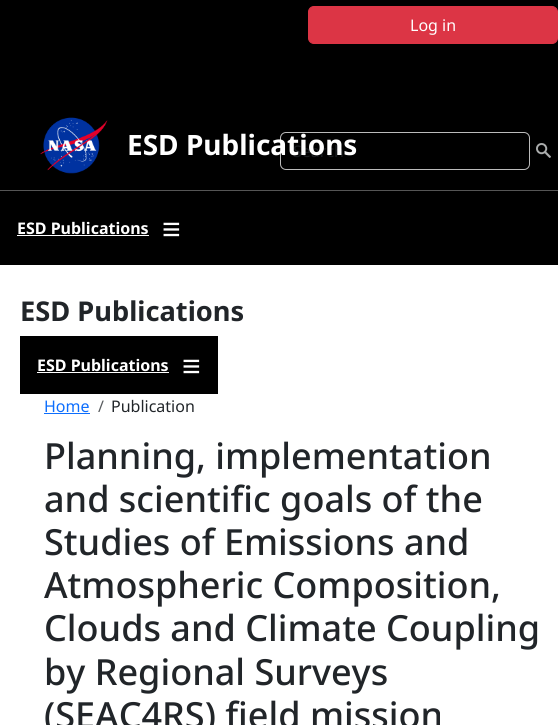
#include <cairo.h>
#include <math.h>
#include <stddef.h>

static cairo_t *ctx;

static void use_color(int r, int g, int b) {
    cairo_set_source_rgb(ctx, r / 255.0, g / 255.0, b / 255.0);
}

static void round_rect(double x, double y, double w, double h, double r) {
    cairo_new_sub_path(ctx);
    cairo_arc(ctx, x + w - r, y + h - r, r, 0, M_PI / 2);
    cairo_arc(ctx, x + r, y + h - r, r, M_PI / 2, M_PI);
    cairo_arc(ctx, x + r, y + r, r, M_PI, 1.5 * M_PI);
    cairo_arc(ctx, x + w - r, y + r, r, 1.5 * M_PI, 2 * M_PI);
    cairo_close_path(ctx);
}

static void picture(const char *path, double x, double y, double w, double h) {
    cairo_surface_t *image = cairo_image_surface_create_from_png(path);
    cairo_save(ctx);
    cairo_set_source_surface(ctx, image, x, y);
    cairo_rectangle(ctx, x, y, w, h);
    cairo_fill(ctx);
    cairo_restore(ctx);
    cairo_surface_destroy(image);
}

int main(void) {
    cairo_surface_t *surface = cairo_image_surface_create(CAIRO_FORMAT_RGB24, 558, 725);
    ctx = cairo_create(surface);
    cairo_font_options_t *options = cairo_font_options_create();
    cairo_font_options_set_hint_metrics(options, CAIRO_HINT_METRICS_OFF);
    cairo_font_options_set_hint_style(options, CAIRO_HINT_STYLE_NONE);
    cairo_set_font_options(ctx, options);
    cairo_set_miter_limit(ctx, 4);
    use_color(255, 255, 255);
    cairo_paint(ctx);
    use_color(0, 0, 0);
    cairo_rectangle(ctx, 0, 0, 558, 190);
    cairo_fill(ctx);
    use_color(220, 53, 69);
    round_rect(308.5, 6.5, 249, 37, 5.5);
    cairo_fill_preserve(ctx);
    cairo_set_line_width(ctx, 1);
    cairo_stroke(ctx);
    cairo_select_font_face(ctx, "Noto Sans", CAIRO_FONT_SLANT_NORMAL, CAIRO_FONT_WEIGHT_NORMAL);
    cairo_set_font_size(ctx, 16);
    use_color(255, 255, 255);
    cairo_move_to(ctx, 410, 31);
    cairo_show_text(ctx, "Log in");
    picture("img1.png", 40, 117, 68, 57);
    round_rect(280.5, 132.5, 249, 37, 5.5);
    use_color(187, 187, 187);
    cairo_stroke(ctx);
    use_color(25, 28, 31);
    cairo_move_to(ctx, 293, 157);
    cairo_show_text(ctx, "Search");
    cairo_select_font_face(ctx, "Noto Sans", CAIRO_FONT_SLANT_NORMAL, CAIRO_FONT_WEIGHT_BOLD);
    cairo_set_font_size(ctx, 28);
    use_color(255, 255, 255);
    cairo_move_to(ctx, 127, 155);
    cairo_show_text(ctx, "ESD Publications");
    picture("img2.png", 536, 143, 15, 15);
    use_color(0, 0, 0);
    cairo_rectangle(ctx, 0, 191, 558, 74);
    cairo_fill(ctx);
    use_color(85, 85, 85);
    cairo_rectangle(ctx, 0, 190, 558, 1);
    cairo_fill(ctx);
    cairo_set_font_size(ctx, 16);
    use_color(255, 255, 255);
    cairo_move_to(ctx, 17, 234);
    cairo_show_text(ctx, "ESD Publications");
    cairo_rectangle(ctx, 17, 235, 132, 1);
    cairo_fill(ctx);
    cairo_select_font_face(ctx, "Liberation Sans", CAIRO_FONT_SLANT_NORMAL, CAIRO_FONT_WEIGHT_BOLD);
    cairo_set_font_size(ctx, 32);
    cairo_move_to(ctx, 162, 240);
    cairo_show_text(ctx, "≡");
    cairo_select_font_face(ctx, "Noto Sans", CAIRO_FONT_SLANT_NORMAL, CAIRO_FONT_WEIGHT_BOLD);
    cairo_set_font_size(ctx, 27.25);
    use_color(33, 37, 41);
    cairo_move_to(ctx, 20, 321);
    cairo_show_text(ctx, "ESD Publications");
    use_color(0, 0, 0);
    cairo_rectangle(ctx, 20, 336, 198, 58);
    cairo_fill(ctx);
    cairo_set_font_size(ctx, 16);
    use_color(255, 255, 255);
    cairo_move_to(ctx, 37, 371);
    cairo_show_text(ctx, "ESD Publications");
    cairo_rectangle(ctx, 37, 372, 132, 1);
    cairo_fill(ctx);
    cairo_select_font_face(ctx, "Liberation Sans", CAIRO_FONT_SLANT_NORMAL, CAIRO_FONT_WEIGHT_BOLD);
    cairo_set_font_size(ctx, 32);
    cairo_move_to(ctx, 182, 377);
    cairo_show_text(ctx, "≡");
    cairo_select_font_face(ctx, "Noto Sans", CAIRO_FONT_SLANT_NORMAL, CAIRO_FONT_WEIGHT_NORMAL);
    cairo_set_font_size(ctx, 16);
    use_color(13, 110, 253);
    cairo_move_to(ctx, 44, 412);
    cairo_show_text(ctx, "Home");
    cairo_rectangle(ctx, 44, 413, 46, 1);
    cairo_fill(ctx);
    use_color(89, 92, 95);
    cairo_move_to(ctx, 98, 412);
    cairo_show_text(ctx, "/");
    use_color(33, 37, 41);
    cairo_move_to(ctx, 111, 412);
    cairo_show_text(ctx, "Publication");
    cairo_select_font_face(ctx, "Noto Sans Medium", CAIRO_FONT_SLANT_NORMAL, CAIRO_FONT_WEIGHT_NORMAL);
    cairo_set_font_size(ctx, 36);
    cairo_move_to(ctx, 44, 469);
    cairo_show_text(ctx, "Planning, implementation");
    cairo_move_to(ctx, 44, 512);
    cairo_show_text(ctx, "and scientific goals of the");
    cairo_move_to(ctx, 44, 555);
    cairo_show_text(ctx, "Studies of Emissions and");
    cairo_move_to(ctx, 44, 598);
    cairo_show_text(ctx, "Atmospheric Composition,");
    cairo_move_to(ctx, 44, 641);
    cairo_show_text(ctx, "Clouds and Climate Coupling");
    cairo_move_to(ctx, 44, 685);
    cairo_show_text(ctx, "by Regional Surveys");
    cairo_move_to(ctx, 44, 728);
    cairo_show_text(ctx, "(SEAC4RS) field mission");
    cairo_surface_write_to_png(surface, "result.png");
    cairo_font_options_destroy(options);
    cairo_destroy(ctx);
    cairo_surface_destroy(surface);
    return 0;
}
